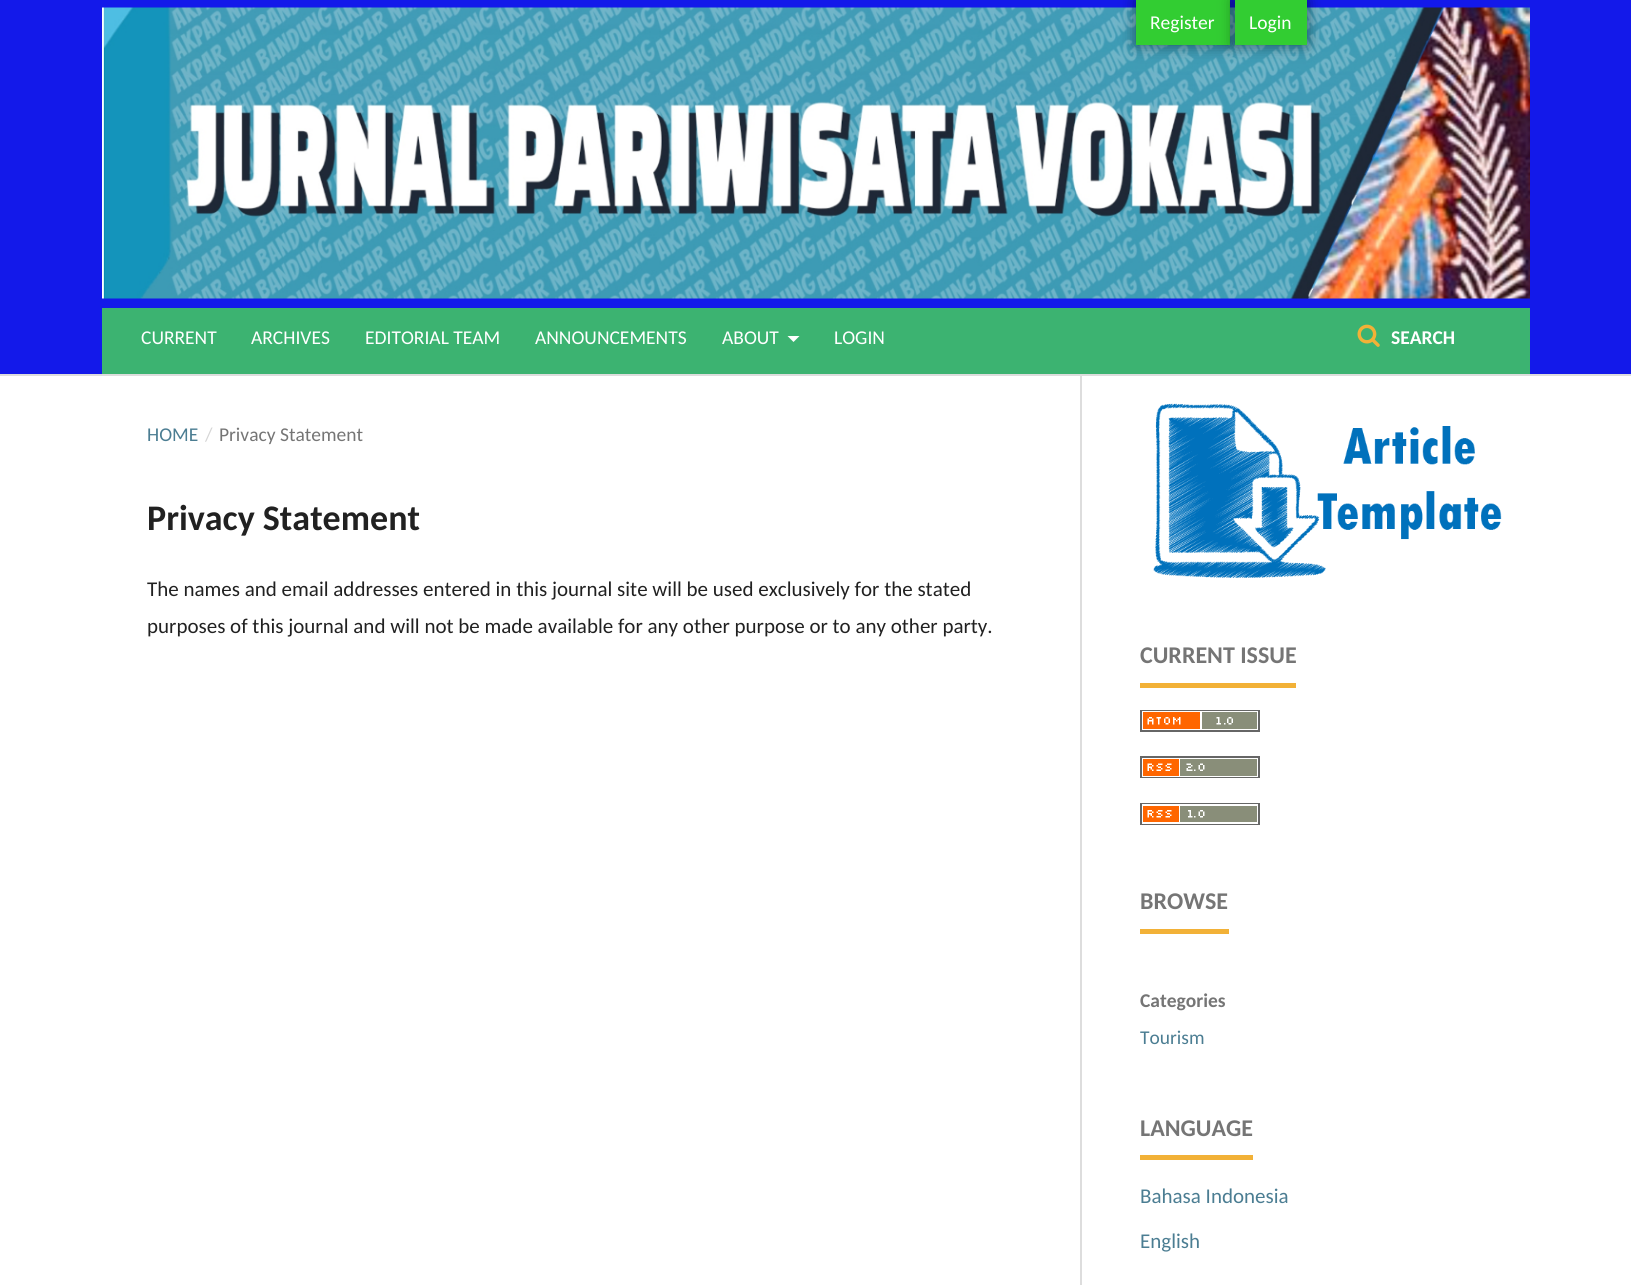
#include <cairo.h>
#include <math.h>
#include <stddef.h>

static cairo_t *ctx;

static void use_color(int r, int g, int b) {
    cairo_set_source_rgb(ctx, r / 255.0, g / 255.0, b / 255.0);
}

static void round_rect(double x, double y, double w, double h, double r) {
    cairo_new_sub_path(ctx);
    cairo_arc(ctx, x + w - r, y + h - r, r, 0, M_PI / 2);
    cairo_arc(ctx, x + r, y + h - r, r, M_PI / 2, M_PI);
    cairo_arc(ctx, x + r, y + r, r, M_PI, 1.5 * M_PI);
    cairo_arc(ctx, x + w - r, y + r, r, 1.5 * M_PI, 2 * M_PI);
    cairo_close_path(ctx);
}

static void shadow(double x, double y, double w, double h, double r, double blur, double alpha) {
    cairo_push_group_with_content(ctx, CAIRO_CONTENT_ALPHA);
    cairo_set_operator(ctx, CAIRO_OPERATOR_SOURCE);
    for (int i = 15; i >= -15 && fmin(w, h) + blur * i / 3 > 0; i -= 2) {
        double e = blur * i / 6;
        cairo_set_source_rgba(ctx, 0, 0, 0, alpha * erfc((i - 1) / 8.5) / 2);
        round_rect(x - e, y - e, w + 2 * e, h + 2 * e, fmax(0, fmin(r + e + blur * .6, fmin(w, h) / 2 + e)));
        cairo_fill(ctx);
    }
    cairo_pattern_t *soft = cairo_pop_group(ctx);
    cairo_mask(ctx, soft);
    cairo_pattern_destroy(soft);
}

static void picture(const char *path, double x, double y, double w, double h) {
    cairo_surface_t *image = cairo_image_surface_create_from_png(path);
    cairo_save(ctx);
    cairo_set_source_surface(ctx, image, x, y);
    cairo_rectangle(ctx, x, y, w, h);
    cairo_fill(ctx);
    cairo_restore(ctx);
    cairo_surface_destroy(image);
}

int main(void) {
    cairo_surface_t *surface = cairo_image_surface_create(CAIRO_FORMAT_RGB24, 1631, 1285);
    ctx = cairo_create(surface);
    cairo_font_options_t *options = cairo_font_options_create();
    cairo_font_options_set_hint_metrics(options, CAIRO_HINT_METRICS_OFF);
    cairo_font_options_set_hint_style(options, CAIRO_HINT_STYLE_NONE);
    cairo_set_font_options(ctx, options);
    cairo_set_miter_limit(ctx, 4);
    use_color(255, 255, 255);
    cairo_paint(ctx);
    use_color(19, 25, 234);
    cairo_rectangle(ctx, 0, 0, 1631, 374);
    cairo_fill(ctx);
    use_color(221, 221, 221);
    cairo_rectangle(ctx, 0, 374, 1631, 2);
    cairo_fill(ctx);
    picture("img1.png", 102, 7, 1428, 292);
    use_color(50, 205, 50);
    cairo_rectangle(ctx, 1136, 0, 94, 45);
    cairo_fill(ctx);
    cairo_save(ctx);
    cairo_set_fill_rule(ctx, CAIRO_FILL_RULE_EVEN_ODD);
    cairo_new_path(ctx);
    cairo_move_to(ctx, 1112, 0);
    cairo_line_to(ctx, 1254, 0);
    cairo_line_to(ctx, 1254, 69);
    cairo_line_to(ctx, 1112, 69);
    cairo_close_path(ctx);
    cairo_move_to(ctx, 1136, 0);
    cairo_line_to(ctx, 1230, 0);
    cairo_line_to(ctx, 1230, 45);
    cairo_line_to(ctx, 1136, 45);
    cairo_close_path(ctx);
    cairo_clip(ctx);
    use_color(0, 0, 0);
    shadow(1136, 0, 94, 45, 0, 7.5, 0.5);
    cairo_restore(ctx);
    cairo_select_font_face(ctx, "Carlito", CAIRO_FONT_SLANT_NORMAL, CAIRO_FONT_WEIGHT_NORMAL);
    cairo_set_font_size(ctx, 19.5);
    use_color(255, 255, 255);
    cairo_move_to(ctx, 1150, 29);
    cairo_show_text(ctx, "Register");
    use_color(50, 205, 50);
    cairo_rectangle(ctx, 1235, 0, 72, 45);
    cairo_fill(ctx);
    cairo_save(ctx);
    cairo_set_fill_rule(ctx, CAIRO_FILL_RULE_EVEN_ODD);
    cairo_new_path(ctx);
    cairo_move_to(ctx, 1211, 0);
    cairo_line_to(ctx, 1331, 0);
    cairo_line_to(ctx, 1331, 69);
    cairo_line_to(ctx, 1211, 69);
    cairo_close_path(ctx);
    cairo_move_to(ctx, 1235, 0);
    cairo_line_to(ctx, 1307, 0);
    cairo_line_to(ctx, 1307, 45);
    cairo_line_to(ctx, 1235, 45);
    cairo_close_path(ctx);
    cairo_clip(ctx);
    use_color(0, 0, 0);
    shadow(1235, 0, 72, 45, 0, 7.5, 0.5);
    cairo_restore(ctx);
    use_color(255, 255, 255);
    cairo_move_to(ctx, 1249, 29);
    cairo_show_text(ctx, "Login");
    use_color(60, 179, 113);
    cairo_rectangle(ctx, 102, 308, 1428, 66);
    cairo_fill(ctx);
    use_color(255, 255, 255);
    cairo_move_to(ctx, 141, 344);
    cairo_show_text(ctx, "CURRENT");
    cairo_move_to(ctx, 251, 344);
    cairo_show_text(ctx, "ARCHIVES");
    cairo_move_to(ctx, 365, 344);
    cairo_show_text(ctx, "EDITORIAL TEAM");
    cairo_move_to(ctx, 535, 344);
    cairo_show_text(ctx, "ANNOUNCEMENTS");
    cairo_move_to(ctx, 722, 344);
    cairo_show_text(ctx, "ABOUT");
    cairo_new_path(ctx);
    cairo_move_to(ctx, 787.5, 336);
    cairo_line_to(ctx, 799.5, 336);
    cairo_line_to(ctx, 793.5, 342);
    cairo_close_path(ctx);
    cairo_fill(ctx);
    cairo_move_to(ctx, 834, 344);
    cairo_show_text(ctx, "LOGIN");
    picture("img2.png", 1357, 324, 23, 23);
    cairo_select_font_face(ctx, "Carlito", CAIRO_FONT_SLANT_NORMAL, CAIRO_FONT_WEIGHT_BOLD);
    cairo_move_to(ctx, 1391, 344);
    cairo_show_text(ctx, "SEARCH");
    cairo_select_font_face(ctx, "Carlito", CAIRO_FONT_SLANT_NORMAL, CAIRO_FONT_WEIGHT_NORMAL);
    use_color(75, 125, 146);
    cairo_move_to(ctx, 147, 441);
    cairo_show_text(ctx, "HOME");
    use_color(214, 214, 214);
    cairo_move_to(ctx, 205, 441);
    cairo_show_text(ctx, "/");
    use_color(117, 117, 117);
    cairo_move_to(ctx, 219, 441);
    cairo_show_text(ctx, "Privacy Statement");
    cairo_select_font_face(ctx, "Carlito", CAIRO_FONT_SLANT_NORMAL, CAIRO_FONT_WEIGHT_BOLD);
    cairo_set_font_size(ctx, 36);
    use_color(33, 33, 33);
    cairo_move_to(ctx, 147, 530);
    cairo_show_text(ctx, "Privacy Statement");
    cairo_select_font_face(ctx, "Carlito", CAIRO_FONT_SLANT_NORMAL, CAIRO_FONT_WEIGHT_NORMAL);
    cairo_set_font_size(ctx, 21);
    cairo_move_to(ctx, 147, 596);
    cairo_show_text(ctx, "The names and email addresses entered in this journal site will be used exclusively for the stated");
    cairo_move_to(ctx, 147, 633);
    cairo_show_text(ctx, "purposes of this journal and will not be made available for any other purpose or to any other party.");
    use_color(221, 221, 221);
    cairo_rectangle(ctx, 1080, 375, 2, 910);
    cairo_fill(ctx);
    picture("img3.png", 1153, 403, 349, 175);
    use_color(242, 177, 55);
    cairo_rectangle(ctx, 1140, 683, 156, 5);
    cairo_fill(ctx);
    cairo_select_font_face(ctx, "Carlito", CAIRO_FONT_SLANT_NORMAL, CAIRO_FONT_WEIGHT_BOLD);
    cairo_set_font_size(ctx, 24);
    use_color(117, 117, 117);
    cairo_move_to(ctx, 1140, 663);
    cairo_show_text(ctx, "CURRENT ISSUE");
    picture("img4.png", 1140, 710, 120, 22);
    picture("img5.png", 1140, 756, 120, 22);
    picture("img6.png", 1140, 803, 120, 22);
    use_color(242, 177, 55);
    cairo_rectangle(ctx, 1140, 929, 89, 5);
    cairo_fill(ctx);
    use_color(117, 117, 117);
    cairo_move_to(ctx, 1140, 909);
    cairo_show_text(ctx, "BROWSE");
    cairo_set_font_size(ctx, 19.5);
    cairo_move_to(ctx, 1140, 1007);
    cairo_show_text(ctx, "Categories");
    cairo_select_font_face(ctx, "Carlito", CAIRO_FONT_SLANT_NORMAL, CAIRO_FONT_WEIGHT_NORMAL);
    use_color(75, 125, 146);
    cairo_move_to(ctx, 1140, 1044);
    cairo_show_text(ctx, "Tourism");
    use_color(242, 177, 55);
    cairo_rectangle(ctx, 1140, 1155, 113, 5);
    cairo_fill(ctx);
    cairo_select_font_face(ctx, "Carlito", CAIRO_FONT_SLANT_NORMAL, CAIRO_FONT_WEIGHT_BOLD);
    cairo_set_font_size(ctx, 24);
    use_color(117, 117, 117);
    cairo_move_to(ctx, 1140, 1136);
    cairo_show_text(ctx, "LANGUAGE");
    cairo_select_font_face(ctx, "Carlito", CAIRO_FONT_SLANT_NORMAL, CAIRO_FONT_WEIGHT_NORMAL);
    cairo_set_font_size(ctx, 21);
    use_color(75, 125, 146);
    cairo_move_to(ctx, 1140, 1203);
    cairo_show_text(ctx, "Bahasa Indonesia");
    cairo_move_to(ctx, 1140, 1248);
    cairo_show_text(ctx, "English");
    cairo_surface_write_to_png(surface, "result.png");
    cairo_font_options_destroy(options);
    cairo_destroy(ctx);
    cairo_surface_destroy(surface);
    return 0;
}
